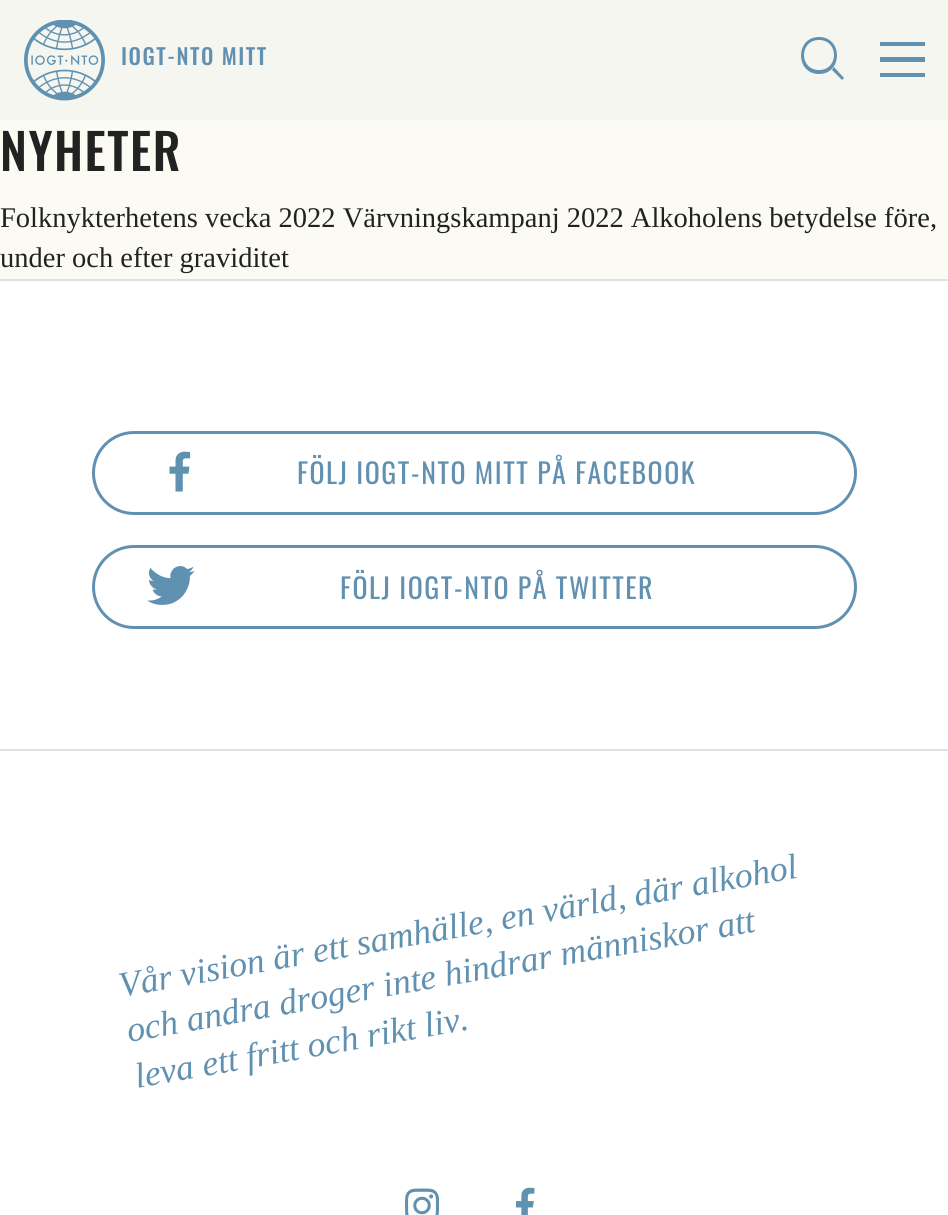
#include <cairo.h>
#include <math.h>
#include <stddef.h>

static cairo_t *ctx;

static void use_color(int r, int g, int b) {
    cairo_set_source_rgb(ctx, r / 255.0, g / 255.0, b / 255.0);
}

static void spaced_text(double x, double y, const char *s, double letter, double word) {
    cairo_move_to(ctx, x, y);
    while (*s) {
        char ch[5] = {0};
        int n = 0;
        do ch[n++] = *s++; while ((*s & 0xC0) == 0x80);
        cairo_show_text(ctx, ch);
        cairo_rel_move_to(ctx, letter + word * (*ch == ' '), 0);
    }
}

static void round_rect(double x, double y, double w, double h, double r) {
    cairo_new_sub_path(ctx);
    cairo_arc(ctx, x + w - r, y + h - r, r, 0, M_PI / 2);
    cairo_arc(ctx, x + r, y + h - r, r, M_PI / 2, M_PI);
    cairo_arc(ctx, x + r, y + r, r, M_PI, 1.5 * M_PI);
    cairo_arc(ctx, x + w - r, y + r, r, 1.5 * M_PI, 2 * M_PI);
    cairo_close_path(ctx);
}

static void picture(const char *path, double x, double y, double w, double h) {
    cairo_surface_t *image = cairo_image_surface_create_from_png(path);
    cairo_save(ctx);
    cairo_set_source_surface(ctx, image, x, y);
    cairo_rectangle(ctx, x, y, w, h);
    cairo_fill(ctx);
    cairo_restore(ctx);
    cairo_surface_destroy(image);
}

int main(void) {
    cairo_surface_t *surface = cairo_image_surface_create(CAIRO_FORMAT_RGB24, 948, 1215);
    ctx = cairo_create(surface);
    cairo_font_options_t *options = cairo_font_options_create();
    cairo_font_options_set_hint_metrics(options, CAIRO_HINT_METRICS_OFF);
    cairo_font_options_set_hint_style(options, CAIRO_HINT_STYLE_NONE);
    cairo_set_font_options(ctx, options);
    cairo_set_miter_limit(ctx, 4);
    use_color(251, 251, 244);
    cairo_paint(ctx);
    use_color(246, 246, 241);
    cairo_rectangle(ctx, 0, 0, 948, 120);
    cairo_fill(ctx);
    picture("img1.png", 24, 20, 81, 81);
    cairo_select_font_face(ctx, "Oswald Medium", CAIRO_FONT_SLANT_NORMAL, CAIRO_FONT_WEIGHT_NORMAL);
    cairo_set_font_size(ctx, 22);
    use_color(97, 145, 177);
    spaced_text(121, 65, "IOGT-NTO MITT", 1.5, 0);
    cairo_new_path(ctx);
    cairo_move_to(ctx, 834, 67);
    cairo_line_to(ctx, 844, 78);
    cairo_line_to(ctx, 842, 80);
    cairo_line_to(ctx, 832, 70);
    cairo_close_path(ctx);
    cairo_move_to(ctx, 819, 74);
    cairo_curve_to(ctx, 795, 74, 795, 37, 819, 37);
    cairo_curve_to(ctx, 843, 37, 843, 74, 819, 74);
    cairo_close_path(ctx);
    cairo_move_to(ctx, 819, 40);
    cairo_curve_to(ctx, 799, 40, 799, 70, 819, 70);
    cairo_curve_to(ctx, 839, 70, 839, 40, 819, 40);
    cairo_close_path(ctx);
    cairo_fill(ctx);
    cairo_new_path(ctx);
    cairo_move_to(ctx, 880, 42);
    cairo_line_to(ctx, 925, 42);
    cairo_line_to(ctx, 925, 46);
    cairo_line_to(ctx, 880, 46);
    cairo_close_path(ctx);
    cairo_move_to(ctx, 880, 57);
    cairo_line_to(ctx, 925, 57);
    cairo_line_to(ctx, 925, 62);
    cairo_line_to(ctx, 880, 62);
    cairo_close_path(ctx);
    cairo_move_to(ctx, 880, 73);
    cairo_line_to(ctx, 925, 73);
    cairo_line_to(ctx, 925, 77);
    cairo_line_to(ctx, 880, 77);
    cairo_close_path(ctx);
    cairo_fill(ctx);
    cairo_set_font_size(ctx, 49.5);
    use_color(34, 34, 34);
    spaced_text(0, 171, "NYHETER", 1.5, 0);
    cairo_select_font_face(ctx, "Liberation Serif", CAIRO_FONT_SLANT_NORMAL, CAIRO_FONT_WEIGHT_NORMAL);
    cairo_set_font_size(ctx, 28.5);
    cairo_move_to(ctx, 0, 227);
    cairo_show_text(ctx, "Folknykterhetens vecka 2022 Värvningskampanj 2022 Alkoholens betydelse före,");
    cairo_move_to(ctx, 0, 267);
    cairo_show_text(ctx, "under och efter graviditet");
    use_color(255, 255, 255);
    cairo_rectangle(ctx, 0, 281, 948, 468);
    cairo_fill(ctx);
    use_color(222, 226, 230);
    cairo_rectangle(ctx, 0, 279, 948, 2);
    cairo_fill(ctx);
    round_rect(93.5, 432.5, 762, 81, 40.5);
    use_color(97, 145, 177);
    cairo_set_line_width(ctx, 3);
    cairo_stroke(ctx);
    picture("img2.png", 169, 451, 22, 41);
    cairo_select_font_face(ctx, "Oswald", CAIRO_FONT_SLANT_NORMAL, CAIRO_FONT_WEIGHT_NORMAL);
    cairo_set_font_size(ctx, 27.9);
    spaced_text(297, 484, "FÖLJ IOGT-NTO MITT PÅ FACEBOOK", 1.5, 0);
    round_rect(93.5, 546.5, 762, 81, 40.5);
    cairo_stroke(ctx);
    picture("img3.png", 147, 566, 48, 39);
    spaced_text(340, 599, "FÖLJ IOGT-NTO PÅ TWITTER", 1.5, 0);
    use_color(255, 255, 255);
    cairo_rectangle(ctx, 0, 751, 948, 464);
    cairo_fill(ctx);
    use_color(222, 226, 230);
    cairo_rectangle(ctx, 0, 749, 948, 2);
    cairo_fill(ctx);
    cairo_select_font_face(ctx, "Liberation Serif", CAIRO_FONT_SLANT_ITALIC, CAIRO_FONT_WEIGHT_NORMAL);
    cairo_set_font_size(ctx, 35.6);
    use_color(97, 145, 177);
    cairo_save(ctx);
    cairo_translate(ctx, 121, 997);
    cairo_rotate(ctx, -10 * M_PI / 180);
    cairo_move_to(ctx, 0, 0);
    cairo_show_text(ctx, "Vår vision är ett samhälle, en värld, där alkohol");
    cairo_restore(ctx);
    cairo_save(ctx);
    cairo_translate(ctx, 129, 1042);
    cairo_rotate(ctx, -10 * M_PI / 180);
    cairo_move_to(ctx, 0, 0);
    cairo_show_text(ctx, "och andra droger inte hindrar människor att");
    cairo_restore(ctx);
    cairo_save(ctx);
    cairo_translate(ctx, 137, 1088);
    cairo_rotate(ctx, -10 * M_PI / 180);
    cairo_move_to(ctx, 0, 0);
    cairo_show_text(ctx, "leva ett fritt och rikt liv.");
    cairo_restore(ctx);
    picture("img4.png", 405, 1188, 34, 27);
    picture("img5.png", 516, 1187, 19, 28);
    cairo_surface_write_to_png(surface, "result.png");
    cairo_font_options_destroy(options);
    cairo_destroy(ctx);
    cairo_surface_destroy(surface);
    return 0;
}
